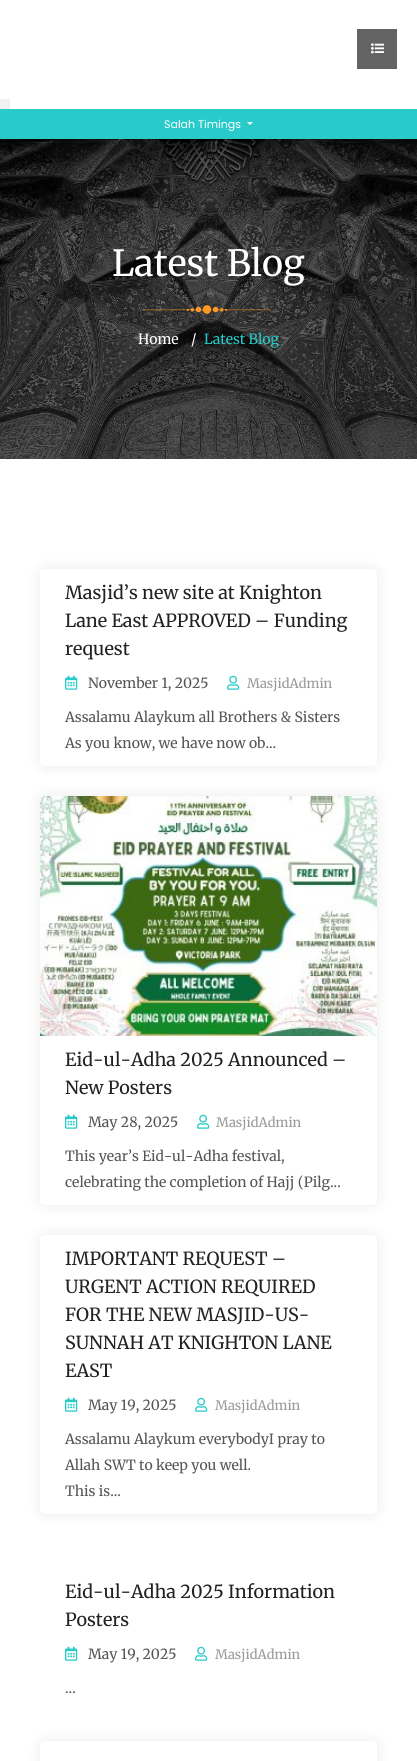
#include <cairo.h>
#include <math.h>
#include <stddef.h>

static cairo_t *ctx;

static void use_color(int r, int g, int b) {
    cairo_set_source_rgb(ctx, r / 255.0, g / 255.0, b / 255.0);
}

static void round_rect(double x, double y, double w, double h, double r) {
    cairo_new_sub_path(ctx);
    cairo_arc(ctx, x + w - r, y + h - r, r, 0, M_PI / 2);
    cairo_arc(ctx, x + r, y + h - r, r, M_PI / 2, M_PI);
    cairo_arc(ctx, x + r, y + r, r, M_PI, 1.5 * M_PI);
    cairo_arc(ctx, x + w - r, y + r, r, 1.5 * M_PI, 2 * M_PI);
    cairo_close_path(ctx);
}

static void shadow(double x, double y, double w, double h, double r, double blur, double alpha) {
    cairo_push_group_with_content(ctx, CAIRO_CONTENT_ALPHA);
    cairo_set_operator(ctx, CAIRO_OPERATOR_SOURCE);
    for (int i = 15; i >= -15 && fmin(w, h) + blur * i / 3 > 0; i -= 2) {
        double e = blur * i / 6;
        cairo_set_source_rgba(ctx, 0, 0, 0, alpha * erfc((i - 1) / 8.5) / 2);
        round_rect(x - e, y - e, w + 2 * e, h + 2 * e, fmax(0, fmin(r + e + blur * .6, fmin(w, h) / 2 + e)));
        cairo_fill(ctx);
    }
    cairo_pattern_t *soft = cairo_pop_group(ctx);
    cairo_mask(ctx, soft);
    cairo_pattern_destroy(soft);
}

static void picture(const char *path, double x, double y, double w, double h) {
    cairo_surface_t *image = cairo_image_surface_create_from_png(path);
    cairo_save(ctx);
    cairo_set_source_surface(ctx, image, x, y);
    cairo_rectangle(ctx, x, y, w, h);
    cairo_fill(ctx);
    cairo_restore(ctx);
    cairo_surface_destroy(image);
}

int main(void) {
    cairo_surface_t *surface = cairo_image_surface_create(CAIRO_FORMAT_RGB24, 417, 1761);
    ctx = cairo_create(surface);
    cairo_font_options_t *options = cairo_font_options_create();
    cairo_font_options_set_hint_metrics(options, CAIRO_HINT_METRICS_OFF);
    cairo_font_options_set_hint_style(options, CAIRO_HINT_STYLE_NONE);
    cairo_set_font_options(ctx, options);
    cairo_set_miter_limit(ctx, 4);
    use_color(255, 255, 255);
    cairo_paint(ctx);
    use_color(99, 99, 99);
    cairo_rectangle(ctx, 357, 29, 40, 40);
    cairo_fill(ctx);
    picture("img1.png", 371, 43, 13, 11);
    use_color(241, 241, 241);
    cairo_rectangle(ctx, 0, 99, 10, 10);
    cairo_fill(ctx);
    use_color(40, 202, 202);
    cairo_rectangle(ctx, 0, 109, 417, 30);
    cairo_fill(ctx);
    cairo_select_font_face(ctx, "Poppins", CAIRO_FONT_SLANT_NORMAL, CAIRO_FONT_WEIGHT_NORMAL);
    cairo_set_font_size(ctx, 11);
    use_color(255, 255, 255);
    cairo_move_to(ctx, 164, 128);
    cairo_show_text(ctx, "Salah Timings");
    cairo_new_path(ctx);
    cairo_move_to(ctx, 247, 122);
    cairo_line_to(ctx, 253, 122);
    cairo_line_to(ctx, 250, 125);
    cairo_close_path(ctx);
    cairo_fill(ctx);
    picture("img2.png", 0, 139, 417, 320);
    cairo_select_font_face(ctx, "Merriweather", CAIRO_FONT_SLANT_NORMAL, CAIRO_FONT_WEIGHT_NORMAL);
    cairo_set_font_size(ctx, 36);
    cairo_move_to(ctx, 112, 276);
    cairo_show_text(ctx, "Latest Blog");
    picture("img3.png", 143, 305, 128, 9);
    cairo_set_font_size(ctx, 14);
    cairo_move_to(ctx, 138, 344);
    cairo_show_text(ctx, "Home");
    cairo_move_to(ctx, 191, 344);
    cairo_show_text(ctx, "/");
    use_color(40, 202, 202);
    cairo_move_to(ctx, 204, 344);
    cairo_show_text(ctx, "Latest Blog");
    use_color(0, 0, 0);
    shadow(40, 569, 337, 197, 5, 7.5, 0.08);
    use_color(255, 255, 255);
    round_rect(40, 569, 337, 197, 5);
    cairo_fill(ctx);
    cairo_set_font_size(ctx, 18);
    use_color(34, 34, 34);
    cairo_move_to(ctx, 65, 599);
    cairo_show_text(ctx, "Masjid’s new site at Knighton");
    cairo_move_to(ctx, 65, 627);
    cairo_show_text(ctx, "Lane East APPROVED – Funding");
    cairo_move_to(ctx, 65, 655);
    cairo_show_text(ctx, "request");
    picture("img4.png", 65, 675, 13, 15);
    cairo_set_font_size(ctx, 14);
    use_color(85, 85, 85);
    cairo_move_to(ctx, 88, 688);
    cairo_show_text(ctx, "November 1, 2025");
    picture("img5.png", 227, 675, 13, 15);
    cairo_set_font_size(ctx, 13);
    use_color(153, 153, 153);
    cairo_move_to(ctx, 247, 688);
    cairo_show_text(ctx, "MasjidAdmin");
    cairo_set_font_size(ctx, 14);
    use_color(85, 85, 85);
    cairo_move_to(ctx, 65, 722);
    cairo_show_text(ctx, "Assalamu Alaykum all Brothers & Sisters");
    cairo_move_to(ctx, 65, 748);
    cairo_show_text(ctx, "As you know, we have now ob...");
    use_color(0, 0, 0);
    shadow(40, 796, 337, 409, 5, 7.5, 0.08);
    picture("img6.png", 40, 796, 337, 240);
    use_color(255, 255, 255);
    cairo_new_path(ctx);
    cairo_move_to(ctx, 40, 1036);
    cairo_line_to(ctx, 377, 1036);
    cairo_line_to(ctx, 377, 1200);
    cairo_curve_to(ctx, 377, 1203, 375, 1205, 372, 1205);
    cairo_line_to(ctx, 45, 1205);
    cairo_curve_to(ctx, 42, 1205, 40, 1203, 40, 1200);
    cairo_close_path(ctx);
    cairo_fill(ctx);
    cairo_set_font_size(ctx, 18);
    use_color(34, 34, 34);
    cairo_move_to(ctx, 65, 1066);
    cairo_show_text(ctx, "Eid-ul-Adha 2025 Announced –");
    cairo_move_to(ctx, 65, 1094);
    cairo_show_text(ctx, "New Posters");
    picture("img4.png", 65, 1114, 13, 15);
    cairo_set_font_size(ctx, 14);
    use_color(85, 85, 85);
    cairo_move_to(ctx, 88, 1127);
    cairo_show_text(ctx, "May 28, 2025");
    picture("img5.png", 197, 1114, 13, 15);
    cairo_set_font_size(ctx, 13);
    use_color(153, 153, 153);
    cairo_move_to(ctx, 216, 1127);
    cairo_show_text(ctx, "MasjidAdmin");
    cairo_set_font_size(ctx, 14);
    use_color(85, 85, 85);
    cairo_move_to(ctx, 65, 1161);
    cairo_show_text(ctx, "This year’s Eid-ul-Adha festival,");
    cairo_move_to(ctx, 65, 1187);
    cairo_show_text(ctx, "celebrating the completion of Hajj (Pilg...");
    use_color(0, 0, 0);
    shadow(40, 1235, 337, 279, 5, 7.5, 0.08);
    use_color(255, 255, 255);
    round_rect(40, 1235, 337, 279, 5);
    cairo_fill(ctx);
    cairo_set_font_size(ctx, 18);
    use_color(34, 34, 34);
    cairo_move_to(ctx, 65, 1265);
    cairo_show_text(ctx, "IMPORTANT REQUEST –");
    cairo_move_to(ctx, 65, 1293);
    cairo_show_text(ctx, "URGENT ACTION REQUIRED");
    cairo_move_to(ctx, 65, 1321);
    cairo_show_text(ctx, "FOR THE NEW MASJID-US-");
    cairo_move_to(ctx, 65, 1349);
    cairo_show_text(ctx, "SUNNAH AT KNIGHTON LANE");
    cairo_move_to(ctx, 65, 1377);
    cairo_show_text(ctx, "EAST");
    picture("img4.png", 65, 1397, 13, 15);
    cairo_set_font_size(ctx, 14);
    use_color(85, 85, 85);
    cairo_move_to(ctx, 88, 1410);
    cairo_show_text(ctx, "May 19, 2025");
    picture("img5.png", 195, 1397, 13, 15);
    cairo_set_font_size(ctx, 13);
    use_color(153, 153, 153);
    cairo_move_to(ctx, 215, 1410);
    cairo_show_text(ctx, "MasjidAdmin");
    cairo_set_font_size(ctx, 14);
    use_color(85, 85, 85);
    cairo_move_to(ctx, 65, 1444);
    cairo_show_text(ctx, "Assalamu Alaykum everybodyI pray to");
    cairo_move_to(ctx, 65, 1470);
    cairo_show_text(ctx, "Allah SWT to keep you well.");
    cairo_move_to(ctx, 65, 1496);
    cairo_show_text(ctx, "This is...");
    cairo_set_font_size(ctx, 18);
    use_color(34, 34, 34);
    cairo_move_to(ctx, 65, 1598);
    cairo_show_text(ctx, "Eid-ul-Adha 2025 Information");
    cairo_move_to(ctx, 65, 1626);
    cairo_show_text(ctx, "Posters");
    picture("img4.png", 65, 1646, 13, 15);
    cairo_set_font_size(ctx, 14);
    use_color(85, 85, 85);
    cairo_move_to(ctx, 88, 1659);
    cairo_show_text(ctx, "May 19, 2025");
    picture("img5.png", 195, 1646, 13, 15);
    cairo_set_font_size(ctx, 13);
    use_color(153, 153, 153);
    cairo_move_to(ctx, 215, 1659);
    cairo_show_text(ctx, "MasjidAdmin");
    cairo_set_font_size(ctx, 14);
    use_color(85, 85, 85);
    cairo_move_to(ctx, 65, 1693);
    cairo_show_text(ctx, "...");
    use_color(0, 0, 0);
    shadow(40, 1741, 337, 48, 5, 7.5, 0.08);
    use_color(255, 255, 255);
    round_rect(40, 1741, 337, 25, 5);
    cairo_fill(ctx);
    cairo_surface_write_to_png(surface, "result.png");
    cairo_font_options_destroy(options);
    cairo_destroy(ctx);
    cairo_surface_destroy(surface);
    return 0;
}
